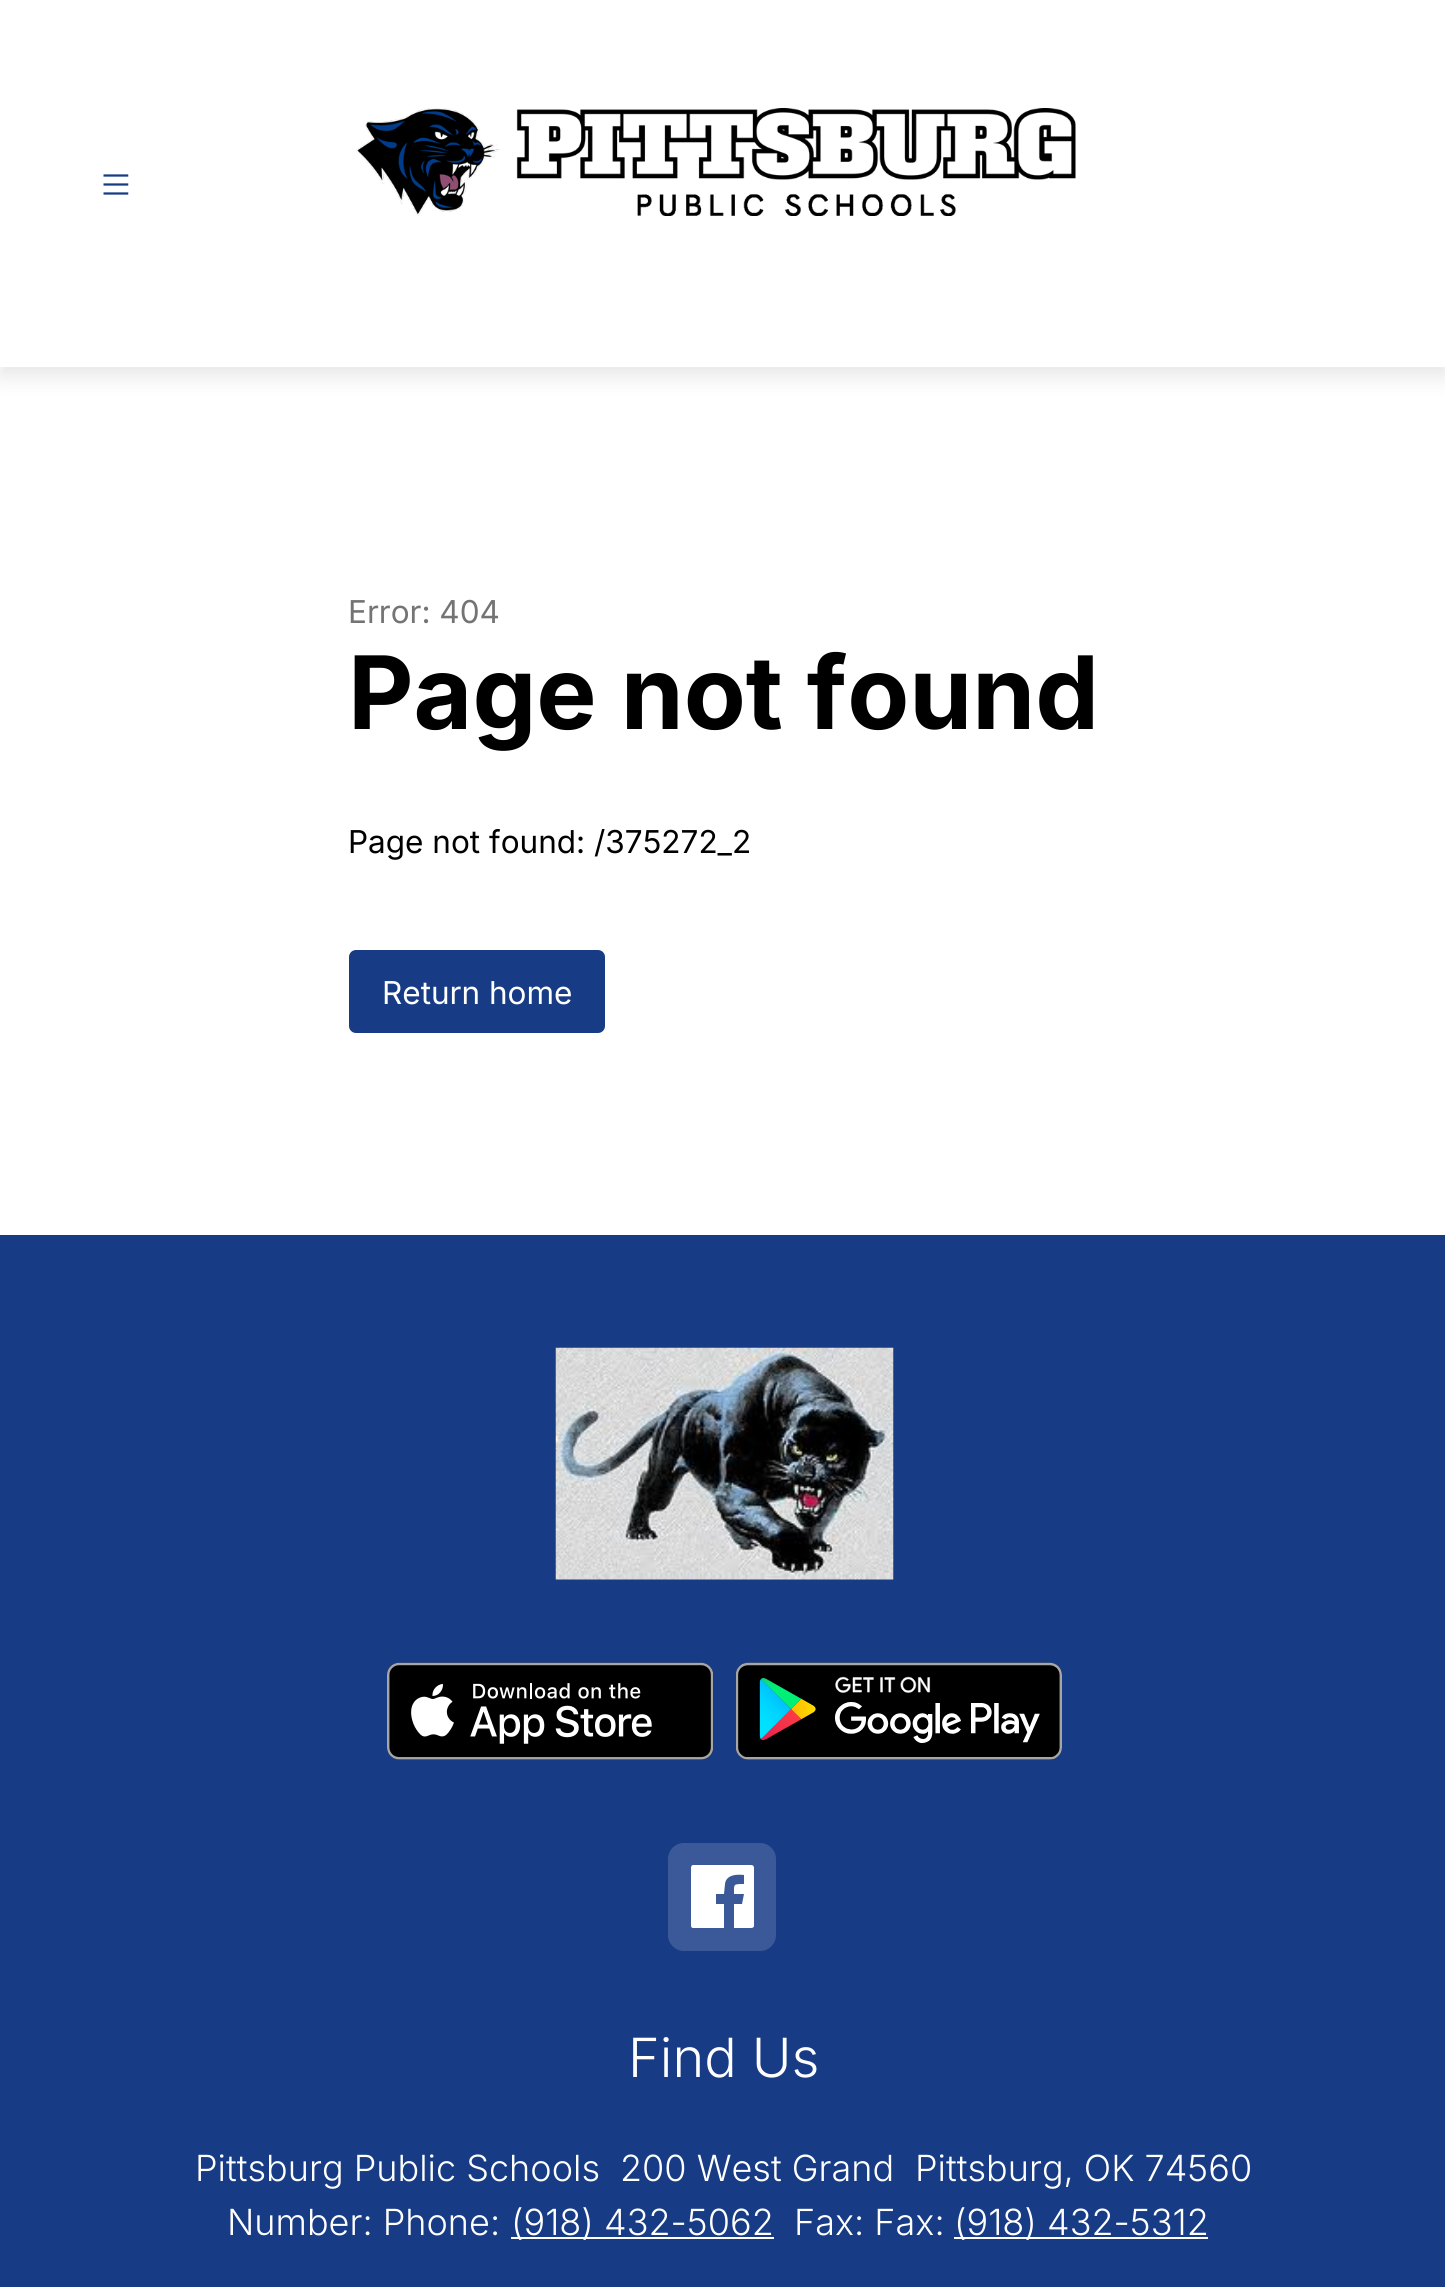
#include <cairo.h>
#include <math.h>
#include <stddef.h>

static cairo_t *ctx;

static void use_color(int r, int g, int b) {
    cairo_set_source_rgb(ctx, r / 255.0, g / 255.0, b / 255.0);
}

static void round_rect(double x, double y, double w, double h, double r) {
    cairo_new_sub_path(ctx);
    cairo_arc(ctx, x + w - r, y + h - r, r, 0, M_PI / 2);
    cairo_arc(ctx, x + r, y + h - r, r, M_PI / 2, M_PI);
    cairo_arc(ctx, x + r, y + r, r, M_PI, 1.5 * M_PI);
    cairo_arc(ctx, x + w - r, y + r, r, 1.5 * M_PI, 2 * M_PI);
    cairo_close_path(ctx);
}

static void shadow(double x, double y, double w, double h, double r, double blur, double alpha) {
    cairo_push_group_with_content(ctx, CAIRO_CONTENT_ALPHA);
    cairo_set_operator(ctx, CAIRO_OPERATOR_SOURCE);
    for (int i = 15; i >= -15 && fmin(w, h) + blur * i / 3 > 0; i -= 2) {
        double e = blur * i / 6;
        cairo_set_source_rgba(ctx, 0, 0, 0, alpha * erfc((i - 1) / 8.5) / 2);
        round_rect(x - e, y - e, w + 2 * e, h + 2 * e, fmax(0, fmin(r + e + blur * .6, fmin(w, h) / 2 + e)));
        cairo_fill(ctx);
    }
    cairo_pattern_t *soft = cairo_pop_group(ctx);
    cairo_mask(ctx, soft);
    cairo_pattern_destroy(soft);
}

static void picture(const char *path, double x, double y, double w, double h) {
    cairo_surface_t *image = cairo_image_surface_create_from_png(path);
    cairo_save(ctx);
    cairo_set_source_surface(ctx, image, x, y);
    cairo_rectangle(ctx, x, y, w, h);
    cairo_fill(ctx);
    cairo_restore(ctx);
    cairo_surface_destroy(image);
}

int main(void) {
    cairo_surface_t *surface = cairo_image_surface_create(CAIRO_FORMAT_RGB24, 1445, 2287);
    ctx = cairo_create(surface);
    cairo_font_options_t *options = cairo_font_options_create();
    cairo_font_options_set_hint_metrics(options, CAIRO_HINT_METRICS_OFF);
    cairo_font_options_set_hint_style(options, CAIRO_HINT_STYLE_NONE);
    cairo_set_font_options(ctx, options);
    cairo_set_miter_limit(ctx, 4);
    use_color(255, 255, 255);
    cairo_paint(ctx);
    use_color(0, 0, 0);
    shadow(0, 9, 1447, 367, 0, 11, 0.1);
    use_color(255, 255, 255);
    cairo_rectangle(ctx, 0, 0, 1445, 367);
    cairo_fill(ctx);
    picture("img1.png", 103, 174, 26, 21);
    picture("img2.png", 356, 108, 720, 108);
    cairo_select_font_face(ctx, "Inter", CAIRO_FONT_SLANT_NORMAL, CAIRO_FONT_WEIGHT_NORMAL);
    cairo_set_font_size(ctx, 31.5);
    use_color(116, 116, 116);
    cairo_move_to(ctx, 348, 623);
    cairo_show_text(ctx, "Error: 404");
    cairo_select_font_face(ctx, "Inter", CAIRO_FONT_SLANT_NORMAL, CAIRO_FONT_WEIGHT_BOLD);
    cairo_set_font_size(ctx, 101.25);
    use_color(0, 0, 0);
    cairo_move_to(ctx, 348, 729);
    cairo_show_text(ctx, "Page not found");
    cairo_select_font_face(ctx, "Inter", CAIRO_FONT_SLANT_NORMAL, CAIRO_FONT_WEIGHT_NORMAL);
    cairo_set_font_size(ctx, 31.5);
    cairo_move_to(ctx, 348, 853);
    cairo_show_text(ctx, "Page not found: /375272_2");
    use_color(23, 60, 133);
    round_rect(349, 950, 256, 83, 7);
    cairo_fill(ctx);
    use_color(255, 255, 255);
    cairo_move_to(ctx, 382, 1004);
    cairo_show_text(ctx, "Return home");
    use_color(23, 60, 133);
    cairo_rectangle(ctx, 0, 1235, 1445, 1052);
    cairo_fill(ctx);
    picture("img3.png", 555, 1347, 339, 233);
    picture("img4.png", 387, 1662, 326, 98);
    picture("img5.png", 736, 1662, 326, 98);
    use_color(59, 89, 152);
    round_rect(668, 1843, 108, 108, 16);
    cairo_fill(ctx);
    use_color(255, 255, 255);
    cairo_new_path(ctx);
    cairo_move_to(ctx, 751, 1865);
    cairo_line_to(ctx, 693, 1865);
    cairo_curve_to(ctx, 692, 1865, 691, 1866, 691, 1868);
    cairo_line_to(ctx, 691, 1926);
    cairo_curve_to(ctx, 691, 1927, 692, 1928, 693, 1928);
    cairo_line_to(ctx, 751, 1928);
    cairo_curve_to(ctx, 753, 1928, 754, 1927, 754, 1926);
    cairo_line_to(ctx, 754, 1868);
    cairo_curve_to(ctx, 754, 1866, 753, 1865, 751, 1865);
    cairo_close_path(ctx);
    cairo_move_to(ctx, 744, 1884);
    cairo_curve_to(ctx, 733, 1884, 734, 1884, 734, 1894);
    cairo_line_to(ctx, 744, 1894);
    cairo_line_to(ctx, 742, 1904);
    cairo_line_to(ctx, 734, 1904);
    cairo_line_to(ctx, 734, 1928);
    cairo_line_to(ctx, 724, 1928);
    cairo_line_to(ctx, 724, 1904);
    cairo_line_to(ctx, 716, 1904);
    cairo_line_to(ctx, 716, 1894);
    cairo_line_to(ctx, 724, 1894);
    cairo_line_to(ctx, 725, 1884);
    cairo_curve_to(ctx, 726, 1875, 736, 1874, 744, 1875);
    cairo_close_path(ctx);
    cairo_fill(ctx);
    cairo_select_font_face(ctx, "Inter Light", CAIRO_FONT_SLANT_NORMAL, CAIRO_FONT_WEIGHT_NORMAL);
    cairo_set_font_size(ctx, 54);
    cairo_move_to(ctx, 628, 2077);
    cairo_show_text(ctx, "Find Us");
    cairo_set_font_size(ctx, 36);
    cairo_move_to(ctx, 195, 2181);
    cairo_show_text(ctx, "Pittsburg Public Schools");
    cairo_move_to(ctx, 620, 2181);
    cairo_show_text(ctx, "200 West Grand");
    cairo_move_to(ctx, 915, 2181);
    cairo_show_text(ctx, "Pittsburg, OK 74560");
    cairo_move_to(ctx, 227, 2235);
    cairo_show_text(ctx, "Number: Phone:");
    cairo_rectangle(ctx, 511, 2237, 263, 2);
    cairo_fill(ctx);
    cairo_move_to(ctx, 511, 2235);
    cairo_show_text(ctx, "(918) 432-5062");
    cairo_move_to(ctx, 794, 2235);
    cairo_show_text(ctx, "Fax: Fax:");
    cairo_rectangle(ctx, 954, 2237, 254, 2);
    cairo_fill(ctx);
    cairo_move_to(ctx, 954, 2235);
    cairo_show_text(ctx, "(918) 432-5312");
    cairo_surface_write_to_png(surface, "result.png");
    cairo_font_options_destroy(options);
    cairo_destroy(ctx);
    cairo_surface_destroy(surface);
    return 0;
}
